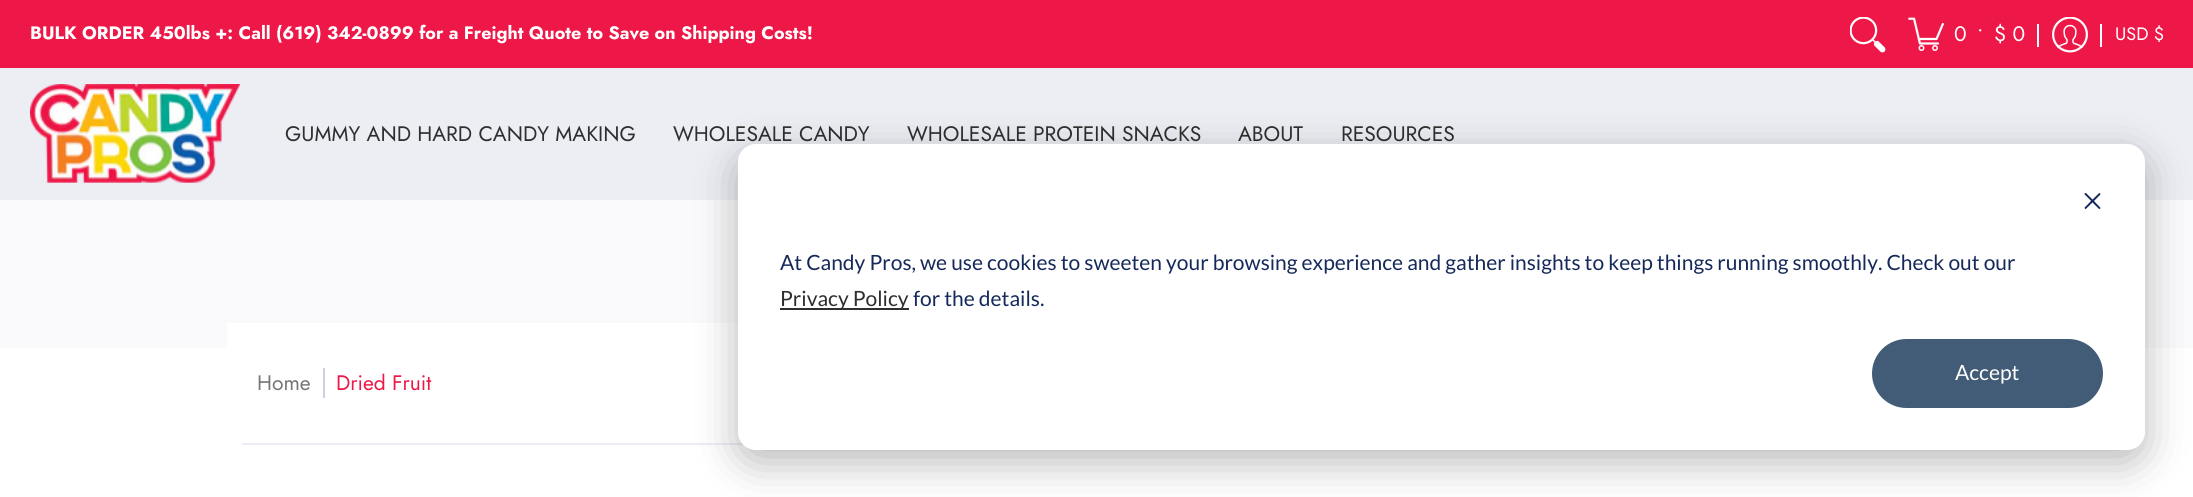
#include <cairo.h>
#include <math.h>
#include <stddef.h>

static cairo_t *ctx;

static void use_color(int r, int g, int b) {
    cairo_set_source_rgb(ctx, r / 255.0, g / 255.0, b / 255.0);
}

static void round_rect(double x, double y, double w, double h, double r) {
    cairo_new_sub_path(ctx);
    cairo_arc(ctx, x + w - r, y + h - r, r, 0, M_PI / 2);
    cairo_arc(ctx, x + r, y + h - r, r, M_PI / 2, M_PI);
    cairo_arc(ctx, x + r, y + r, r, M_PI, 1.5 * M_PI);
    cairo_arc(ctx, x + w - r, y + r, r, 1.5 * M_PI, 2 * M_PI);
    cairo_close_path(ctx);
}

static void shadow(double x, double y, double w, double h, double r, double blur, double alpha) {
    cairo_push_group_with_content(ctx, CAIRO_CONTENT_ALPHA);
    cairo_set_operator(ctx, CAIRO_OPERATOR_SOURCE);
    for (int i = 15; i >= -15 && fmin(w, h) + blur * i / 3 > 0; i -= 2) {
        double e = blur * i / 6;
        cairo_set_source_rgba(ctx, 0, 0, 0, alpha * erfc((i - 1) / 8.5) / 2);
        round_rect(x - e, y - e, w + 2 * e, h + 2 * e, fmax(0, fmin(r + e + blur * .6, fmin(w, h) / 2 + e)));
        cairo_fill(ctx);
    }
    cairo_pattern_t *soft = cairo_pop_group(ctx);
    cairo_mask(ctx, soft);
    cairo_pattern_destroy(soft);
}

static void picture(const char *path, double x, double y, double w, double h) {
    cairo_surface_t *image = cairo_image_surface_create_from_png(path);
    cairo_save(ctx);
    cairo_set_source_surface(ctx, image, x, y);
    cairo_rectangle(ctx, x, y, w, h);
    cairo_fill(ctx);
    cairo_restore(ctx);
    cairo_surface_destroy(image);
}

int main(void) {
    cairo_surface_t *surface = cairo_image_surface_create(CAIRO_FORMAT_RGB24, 2193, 497);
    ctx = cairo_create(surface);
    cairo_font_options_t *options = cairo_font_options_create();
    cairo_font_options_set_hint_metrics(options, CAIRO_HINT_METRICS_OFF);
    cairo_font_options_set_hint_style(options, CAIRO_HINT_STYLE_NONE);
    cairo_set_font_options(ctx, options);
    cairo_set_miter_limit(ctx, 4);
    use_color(255, 255, 255);
    cairo_paint(ctx);
    use_color(237, 24, 72);
    cairo_rectangle(ctx, 0, 0, 2193, 68);
    cairo_fill(ctx);
    use_color(237, 238, 244);
    cairo_rectangle(ctx, 0, 68, 2193, 1);
    cairo_fill(ctx);
    cairo_select_font_face(ctx, "Jost", CAIRO_FONT_SLANT_NORMAL, CAIRO_FONT_WEIGHT_BOLD);
    cairo_set_font_size(ctx, 18);
    use_color(255, 255, 255);
    cairo_move_to(ctx, 30, 39);
    cairo_show_text(ctx, "BULK ORDER 450lbs +: Call (619) 342-0899 for a Freight Quote to Save on Shipping Costs!");
    picture("img1.png", 1850, 17, 36, 36);
    picture("img2.png", 1908, 17, 36, 34);
    cairo_select_font_face(ctx, "Jost", CAIRO_FONT_SLANT_NORMAL, CAIRO_FONT_WEIGHT_NORMAL);
    cairo_set_font_size(ctx, 21);
    cairo_move_to(ctx, 1954, 41);
    cairo_show_text(ctx, "0");
    cairo_move_to(ctx, 1977, 39);
    cairo_show_text(ctx, "•");
    cairo_move_to(ctx, 1994, 41);
    cairo_show_text(ctx, "$ 0");
    cairo_rectangle(ctx, 2037, 24, 2, 23);
    cairo_fill(ctx);
    picture("img3.png", 2052, 17, 36, 36);
    cairo_rectangle(ctx, 2100, 24, 2, 23);
    cairo_fill(ctx);
    cairo_set_font_size(ctx, 18);
    cairo_move_to(ctx, 2115, 40);
    cairo_show_text(ctx, "USD $");
    use_color(237, 238, 244);
    cairo_rectangle(ctx, 0, 69, 2193, 131);
    cairo_fill(ctx);
    picture("img4.png", 30, 84, 210, 99);
    cairo_set_font_size(ctx, 21);
    use_color(47, 47, 47);
    cairo_move_to(ctx, 285, 141);
    cairo_show_text(ctx, "GUMMY AND HARD CANDY MAKING");
    cairo_move_to(ctx, 673, 141);
    cairo_show_text(ctx, "WHOLESALE CANDY");
    cairo_move_to(ctx, 907, 141);
    cairo_show_text(ctx, "WHOLESALE PROTEIN SNACKS");
    cairo_move_to(ctx, 1238, 141);
    cairo_show_text(ctx, "ABOUT");
    cairo_move_to(ctx, 1341, 141);
    cairo_show_text(ctx, "RESOURCES");
    use_color(250, 250, 252);
    cairo_rectangle(ctx, 0, 200, 2193, 148);
    cairo_fill(ctx);
    use_color(255, 255, 255);
    cairo_rectangle(ctx, 227, 323, 1740, 25);
    cairo_fill(ctx);
    use_color(237, 238, 244);
    cairo_rectangle(ctx, 242, 443, 502, 2);
    cairo_fill(ctx);
    use_color(118, 118, 118);
    cairo_move_to(ctx, 257, 390);
    cairo_show_text(ctx, "Home");
    use_color(205, 208, 225);
    cairo_rectangle(ctx, 323, 368, 2, 30);
    cairo_fill(ctx);
    use_color(237, 24, 72);
    cairo_move_to(ctx, 336, 390);
    cairo_show_text(ctx, "Dried Fruit");
    use_color(0, 0, 0);
    shadow(738, 156, 1407, 306, 18, 21, 0.28);
    use_color(255, 255, 255);
    round_rect(738, 144, 1407, 306, 18);
    cairo_fill(ctx);
    picture("img5.png", 2084, 193, 17, 16);
    cairo_select_font_face(ctx, "Lato", CAIRO_FONT_SLANT_NORMAL, CAIRO_FONT_WEIGHT_NORMAL);
    use_color(21, 41, 90);
    cairo_move_to(ctx, 780, 270);
    cairo_show_text(ctx, "At Candy Pros, we use cookies to sweeten your browsing experience and gather insights to keep things running smoothly. Check out our");
    use_color(47, 47, 47);
    cairo_rectangle(ctx, 780, 308, 129, 2);
    cairo_fill(ctx);
    cairo_move_to(ctx, 780, 306);
    cairo_show_text(ctx, "Privacy Policy");
    use_color(21, 41, 90);
    cairo_move_to(ctx, 913, 306);
    cairo_show_text(ctx, "for the details.");
    use_color(66, 91, 118);
    round_rect(1873, 340, 229, 67, 33.5);
    cairo_fill_preserve(ctx);
    cairo_stroke(ctx);
    use_color(255, 255, 255);
    cairo_move_to(ctx, 1955, 380);
    cairo_show_text(ctx, "Accept");
    cairo_surface_write_to_png(surface, "result.png");
    cairo_font_options_destroy(options);
    cairo_destroy(ctx);
    cairo_surface_destroy(surface);
    return 0;
}
